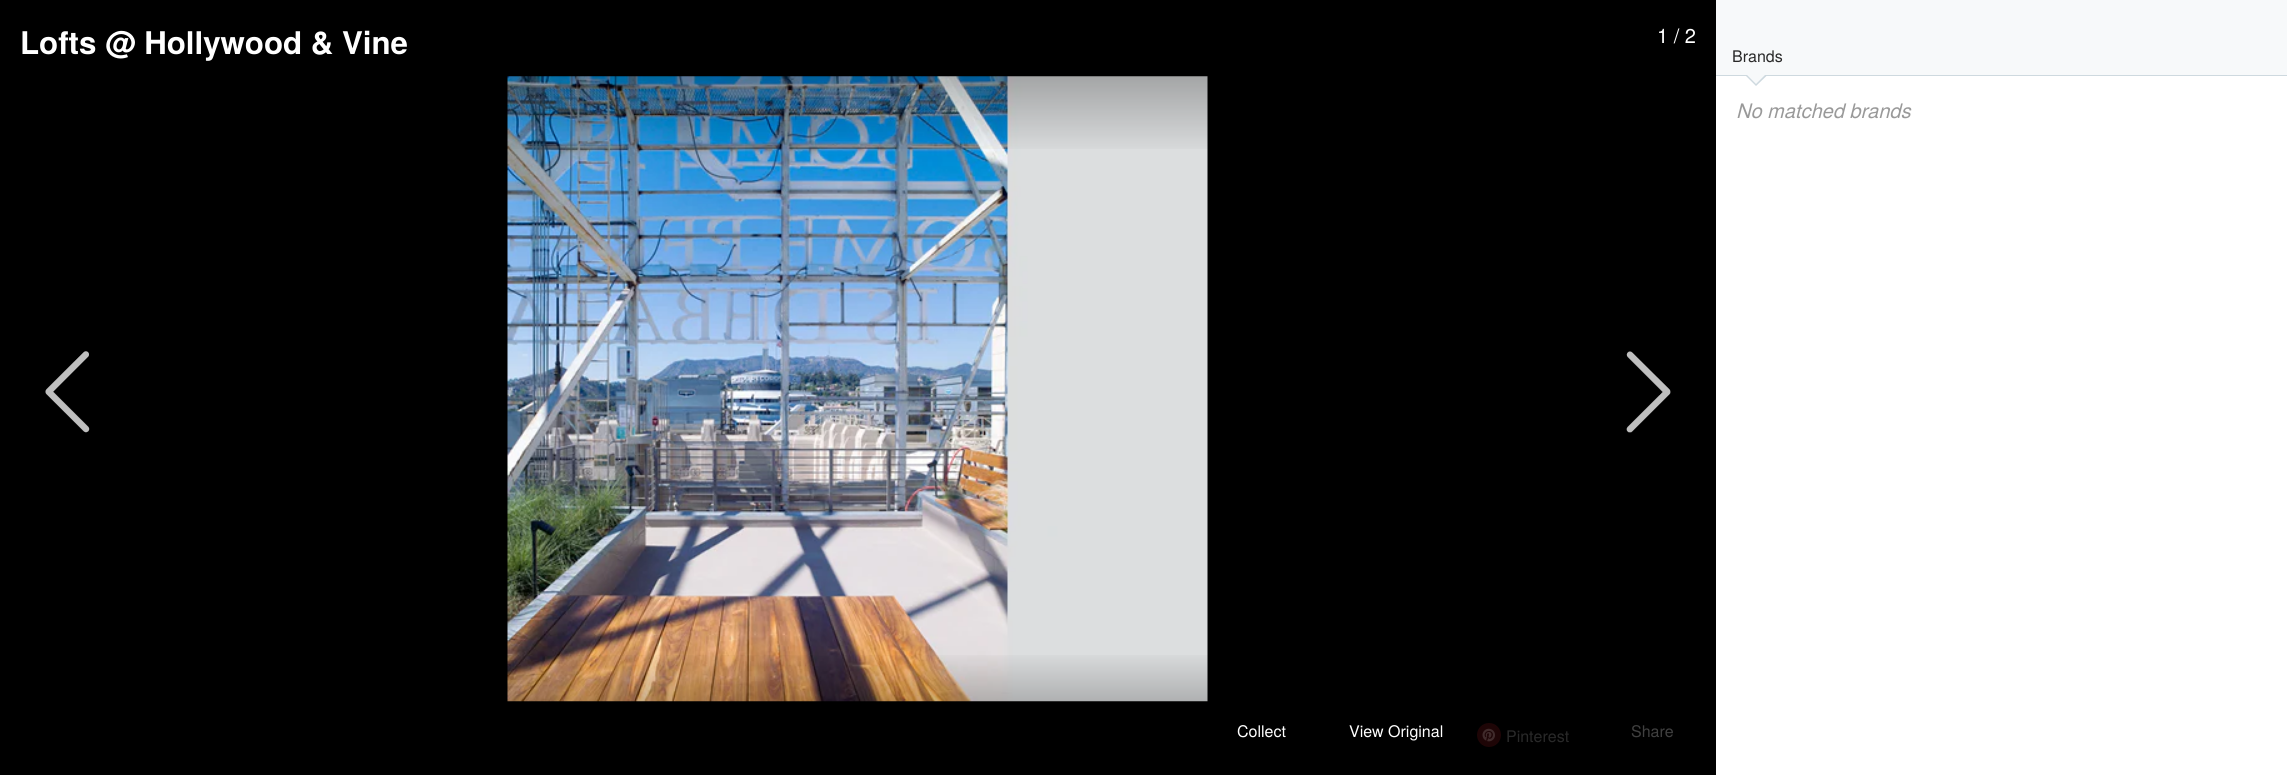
#include <cairo.h>
#include <math.h>
#include <stddef.h>

static cairo_t *ctx;

static void use_color(int r, int g, int b) {
    cairo_set_source_rgb(ctx, r / 255.0, g / 255.0, b / 255.0);
}

static void picture(const char *path, double x, double y, double w, double h) {
    cairo_surface_t *image = cairo_image_surface_create_from_png(path);
    cairo_save(ctx);
    cairo_set_source_surface(ctx, image, x, y);
    cairo_rectangle(ctx, x, y, w, h);
    cairo_fill(ctx);
    cairo_restore(ctx);
    cairo_surface_destroy(image);
}

int main(void) {
    cairo_surface_t *surface = cairo_image_surface_create(CAIRO_FORMAT_RGB24, 2287, 775);
    ctx = cairo_create(surface);
    cairo_font_options_t *options = cairo_font_options_create();
    cairo_font_options_set_hint_metrics(options, CAIRO_HINT_METRICS_OFF);
    cairo_font_options_set_hint_style(options, CAIRO_HINT_STYLE_NONE);
    cairo_set_font_options(ctx, options);
    cairo_set_miter_limit(ctx, 4);
    cairo_pattern_t *gradient;
    use_color(255, 255, 255);
    cairo_paint(ctx);
    use_color(0, 0, 0);
    cairo_rectangle(ctx, 0, 0, 1716, 775);
    cairo_fill(ctx);
    cairo_select_font_face(ctx, "TeX Gyre Heros", CAIRO_FONT_SLANT_NORMAL, CAIRO_FONT_WEIGHT_BOLD);
    cairo_set_font_size(ctx, 31.25);
    use_color(255, 255, 255);
    cairo_move_to(ctx, 20, 54);
    cairo_show_text(ctx, "Lofts @ Hollywood & Vine");
    cairo_select_font_face(ctx, "TeX Gyre Heros", CAIRO_FONT_SLANT_NORMAL, CAIRO_FONT_WEIGHT_NORMAL);
    cairo_set_font_size(ctx, 20);
    cairo_move_to(ctx, 1657, 43);
    cairo_show_text(ctx, "1 / 2");
    picture("img1.png", 507, 76, 701, 626);
    gradient = cairo_pattern_create_linear(858, 0, 858, 156);
    cairo_pattern_add_color_stop_rgba(gradient, 0, 0, 0, 0, 0.5);
    cairo_pattern_add_color_stop_rgba(gradient, 1, 0, 0, 0, 0);
    cairo_set_source(ctx, gradient);
    cairo_pattern_destroy(gradient);
    cairo_rectangle(ctx, 507, 76, 701, 73);
    cairo_fill(ctx);
    picture("img2.png", 45, 351, 45, 82);
    picture("img3.png", 1626, 351, 45, 82);
    gradient = cairo_pattern_create_linear(858, 775, 858, 650);
    cairo_pattern_add_color_stop_rgba(gradient, 0, 0, 0, 0, 0.5);
    cairo_pattern_add_color_stop_rgba(gradient, 1, 0, 0, 0, 0);
    cairo_set_source(ctx, gradient);
    cairo_pattern_destroy(gradient);
    cairo_rectangle(ctx, 507, 655, 701, 47);
    cairo_fill(ctx);
    cairo_set_font_size(ctx, 16);
    use_color(255, 255, 255);
    cairo_move_to(ctx, 1237, 737);
    cairo_show_text(ctx, "Collect");
    cairo_move_to(ctx, 1349, 737);
    cairo_show_text(ctx, "View Original");
    picture("img4.png", 1477, 723, 24, 24);
    use_color(41, 41, 41);
    cairo_move_to(ctx, 1506, 742);
    cairo_show_text(ctx, "Pinterest");
    use_color(64, 64, 64);
    cairo_move_to(ctx, 1631, 737);
    cairo_show_text(ctx, "Share");
    use_color(247, 249, 250);
    cairo_rectangle(ctx, 1716, 0, 571, 75);
    cairo_fill(ctx);
    use_color(206, 217, 223);
    cairo_rectangle(ctx, 1716, 75, 571, 1);
    cairo_fill(ctx);
    use_color(41, 41, 41);
    cairo_move_to(ctx, 1732, 62);
    cairo_show_text(ctx, "Brands");
    use_color(206, 217, 223);
    cairo_new_path(ctx);
    cairo_move_to(ctx, 1745, 75);
    cairo_line_to(ctx, 1767.5, 75);
    cairo_line_to(ctx, 1756, 86);
    cairo_close_path(ctx);
    cairo_fill(ctx);
    use_color(247, 249, 250);
    cairo_new_path(ctx);
    cairo_move_to(ctx, 1746, 74);
    cairo_line_to(ctx, 1766, 74);
    cairo_line_to(ctx, 1756, 84);
    cairo_close_path(ctx);
    cairo_fill(ctx);
    cairo_select_font_face(ctx, "TeX Gyre Heros", CAIRO_FONT_SLANT_ITALIC, CAIRO_FONT_WEIGHT_NORMAL);
    cairo_set_font_size(ctx, 20);
    use_color(153, 153, 153);
    cairo_move_to(ctx, 1736, 118);
    cairo_show_text(ctx, "No matched brands");
    cairo_surface_write_to_png(surface, "result.png");
    cairo_font_options_destroy(options);
    cairo_destroy(ctx);
    cairo_surface_destroy(surface);
    return 0;
}
